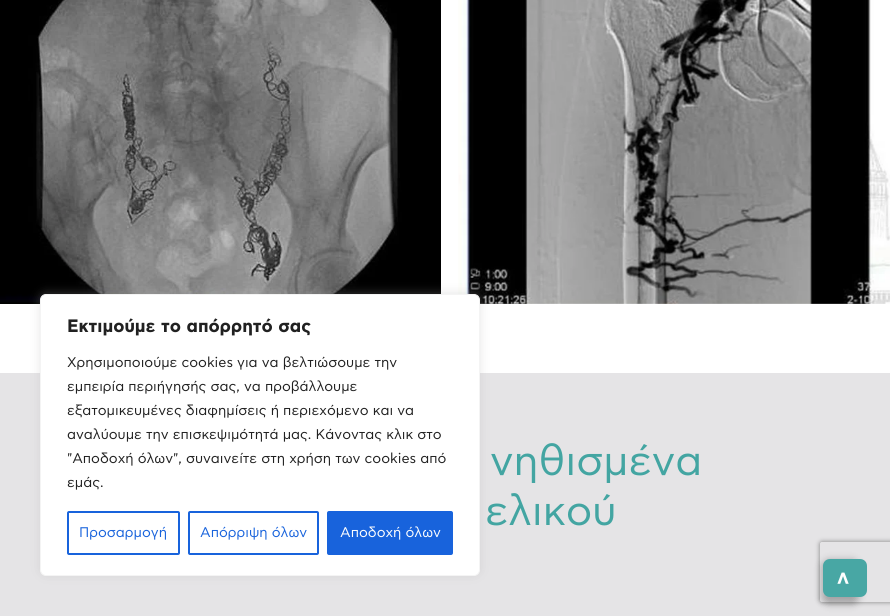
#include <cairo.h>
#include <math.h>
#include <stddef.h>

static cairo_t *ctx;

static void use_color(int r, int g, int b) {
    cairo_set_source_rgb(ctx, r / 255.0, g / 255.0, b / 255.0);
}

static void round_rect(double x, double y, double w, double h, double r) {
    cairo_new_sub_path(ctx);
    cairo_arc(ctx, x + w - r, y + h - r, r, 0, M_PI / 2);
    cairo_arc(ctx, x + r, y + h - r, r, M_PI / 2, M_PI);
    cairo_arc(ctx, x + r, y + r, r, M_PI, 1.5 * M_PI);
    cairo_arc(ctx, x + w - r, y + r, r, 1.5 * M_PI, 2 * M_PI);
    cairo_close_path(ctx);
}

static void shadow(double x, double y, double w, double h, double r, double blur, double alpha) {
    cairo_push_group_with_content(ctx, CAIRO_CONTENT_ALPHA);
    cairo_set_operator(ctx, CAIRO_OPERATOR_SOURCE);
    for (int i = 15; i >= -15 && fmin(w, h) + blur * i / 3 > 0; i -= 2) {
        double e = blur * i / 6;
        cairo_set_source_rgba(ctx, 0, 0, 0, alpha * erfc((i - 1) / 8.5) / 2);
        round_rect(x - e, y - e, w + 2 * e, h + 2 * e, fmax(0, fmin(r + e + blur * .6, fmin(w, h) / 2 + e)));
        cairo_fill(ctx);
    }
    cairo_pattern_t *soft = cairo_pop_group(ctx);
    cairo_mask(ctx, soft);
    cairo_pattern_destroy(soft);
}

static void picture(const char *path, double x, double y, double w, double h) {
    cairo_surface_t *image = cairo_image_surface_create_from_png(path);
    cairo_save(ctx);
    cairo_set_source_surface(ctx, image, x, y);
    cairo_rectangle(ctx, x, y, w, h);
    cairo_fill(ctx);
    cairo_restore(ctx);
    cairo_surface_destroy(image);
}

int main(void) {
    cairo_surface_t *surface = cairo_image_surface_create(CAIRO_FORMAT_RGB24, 890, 616);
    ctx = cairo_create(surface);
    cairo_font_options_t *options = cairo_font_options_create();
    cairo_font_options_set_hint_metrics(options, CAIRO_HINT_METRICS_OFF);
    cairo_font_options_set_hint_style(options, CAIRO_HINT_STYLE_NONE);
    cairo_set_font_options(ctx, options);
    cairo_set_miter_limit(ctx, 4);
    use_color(255, 255, 255);
    cairo_paint(ctx);
    picture("img1.png", 0, 0, 441, 304);
    picture("img2.png", 458, 0, 432, 304);
    use_color(229, 228, 230);
    cairo_rectangle(ctx, 0, 373, 890, 243);
    cairo_fill(ctx);
    use_color(172, 171, 171);
    shadow(40, 293, 440, 282, 6, 5, 0.3);
    use_color(255, 255, 255);
    round_rect(40.5, 294.5, 439, 281, 5.5);
    cairo_fill_preserve(ctx);
    use_color(244, 244, 244);
    cairo_set_line_width(ctx, 1);
    cairo_stroke(ctx);
    cairo_select_font_face(ctx, "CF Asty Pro", CAIRO_FONT_SLANT_NORMAL, CAIRO_FONT_WEIGHT_BOLD);
    cairo_set_font_size(ctx, 18);
    use_color(33, 33, 33);
    cairo_move_to(ctx, 67, 332);
    cairo_show_text(ctx, "Εκτιμούμε το απόρρητό σας");
    cairo_select_font_face(ctx, "CF Asty Pro", CAIRO_FONT_SLANT_NORMAL, CAIRO_FONT_WEIGHT_NORMAL);
    cairo_set_font_size(ctx, 14);
    cairo_move_to(ctx, 67, 367);
    cairo_show_text(ctx, "Χρησιμοποιούμε cookies για να βελτιώσουμε την");
    cairo_move_to(ctx, 67, 391);
    cairo_show_text(ctx, "εμπειρία περιήγησής σας, να προβάλλουμε");
    cairo_move_to(ctx, 67, 415);
    cairo_show_text(ctx, "εξατομικευμένες διαφημίσεις ή περιεχόμενο και να");
    cairo_move_to(ctx, 67, 439);
    cairo_show_text(ctx, "αναλύουμε την επισκεψιμότητά μας. Κάνοντας κλικ στο");
    cairo_move_to(ctx, 67, 463);
    cairo_show_text(ctx, "\"Αποδοχή όλων\", συναινείτε στη χρήση των cookies από");
    cairo_move_to(ctx, 67, 487);
    cairo_show_text(ctx, "εμάς.");
    round_rect(68, 512, 111, 42, 1);
    use_color(24, 99, 220);
    cairo_set_line_width(ctx, 2);
    cairo_stroke(ctx);
    cairo_move_to(ctx, 79, 537);
    cairo_show_text(ctx, "Προσαρμογή");
    round_rect(189, 512, 129, 42, 1);
    cairo_stroke(ctx);
    cairo_move_to(ctx, 200, 537);
    cairo_show_text(ctx, "Απόρριψη όλων");
    round_rect(328, 512, 124, 42, 1);
    cairo_fill_preserve(ctx);
    cairo_stroke(ctx);
    use_color(254, 254, 254);
    cairo_move_to(ctx, 340, 537);
    cairo_show_text(ctx, "Αποδοχή όλων");
    cairo_set_font_size(ctx, 42);
    use_color(67, 165, 162);
    cairo_move_to(ctx, 490, 475);
    cairo_show_text(ctx, "νηθισμένα");
    cairo_move_to(ctx, 485, 525);
    cairo_show_text(ctx, "ελικού");
    cairo_save(ctx);
    cairo_set_fill_rule(ctx, CAIRO_FILL_RULE_EVEN_ODD);
    cairo_new_path(ctx);
    cairo_move_to(ctx, 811, 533);
    cairo_line_to(ctx, 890, 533);
    cairo_line_to(ctx, 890, 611);
    cairo_line_to(ctx, 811, 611);
    cairo_close_path(ctx);
    cairo_move_to(ctx, 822, 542);
    cairo_line_to(ctx, 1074, 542);
    cairo_curve_to(ctx, 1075, 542, 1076, 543, 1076, 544);
    cairo_line_to(ctx, 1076, 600);
    cairo_curve_to(ctx, 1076, 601, 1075, 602, 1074, 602);
    cairo_line_to(ctx, 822, 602);
    cairo_curve_to(ctx, 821, 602, 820, 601, 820, 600);
    cairo_line_to(ctx, 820, 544);
    cairo_curve_to(ctx, 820, 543, 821, 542, 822, 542);
    cairo_close_path(ctx);
    cairo_clip(ctx);
    use_color(128, 128, 128);
    shadow(820, 542, 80, 60, 2, 2.5, 1);
    cairo_restore(ctx);
    use_color(0, 0, 0);
    shadow(822, 560, 37, 44, 7, 4, 0.29);
    use_color(72, 167, 164);
    cairo_new_path(ctx);
    cairo_move_to(ctx, 823, 590);
    cairo_line_to(ctx, 823, 566);
    cairo_curve_to(ctx, 823, 562, 826, 559, 830, 559);
    cairo_line_to(ctx, 860, 559);
    cairo_curve_to(ctx, 864, 559, 867, 562, 867, 566);
    cairo_line_to(ctx, 867, 590);
    cairo_curve_to(ctx, 867, 594, 864, 597, 860, 597);
    cairo_line_to(ctx, 830, 597);
    cairo_curve_to(ctx, 826, 597, 823, 594, 823, 590);
    cairo_close_path(ctx);
    cairo_fill(ctx);
    cairo_select_font_face(ctx, "CF Asty Pro", CAIRO_FONT_SLANT_NORMAL, CAIRO_FONT_WEIGHT_BOLD);
    cairo_set_font_size(ctx, 20);
    use_color(254, 254, 254);
    cairo_save(ctx);
    cairo_translate(ctx, 849, 585);
    cairo_rotate(ctx, -90 * M_PI / 180);
    cairo_move_to(ctx, 0, 0);
    cairo_show_text(ctx, ">");
    cairo_restore(ctx);
    cairo_surface_write_to_png(surface, "result.png");
    cairo_font_options_destroy(options);
    cairo_destroy(ctx);
    cairo_surface_destroy(surface);
    return 0;
}
